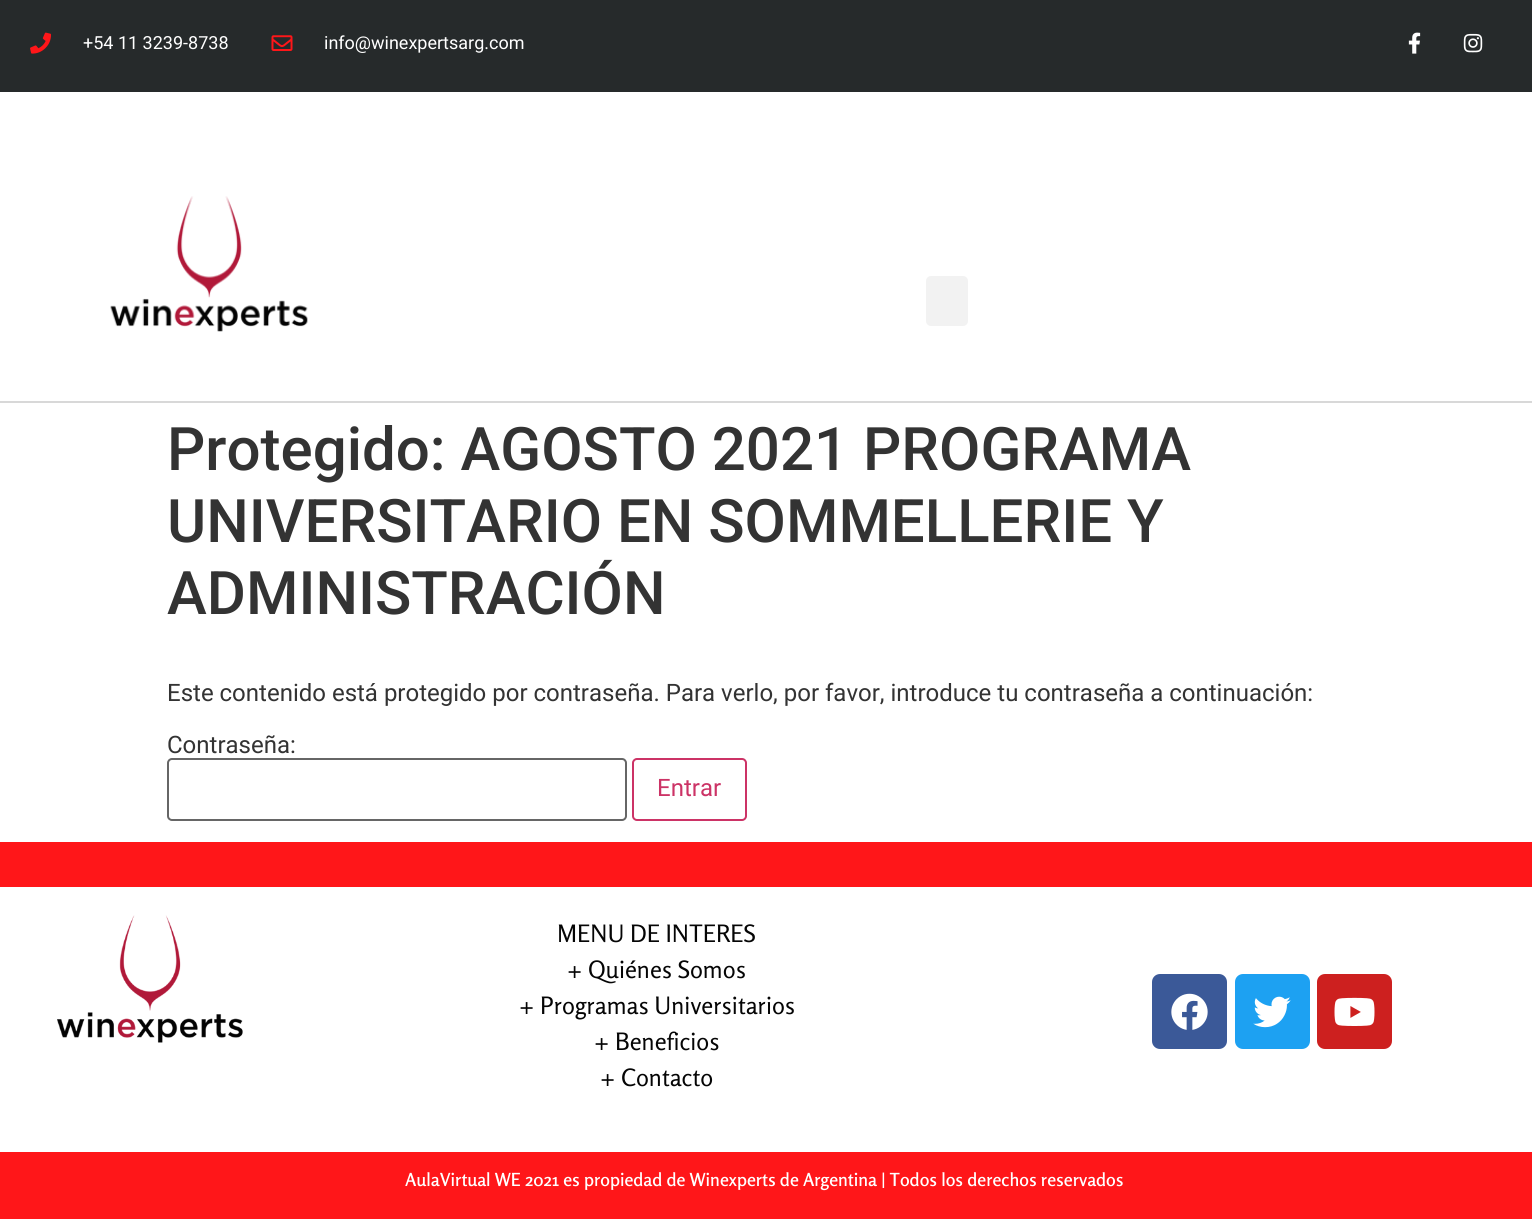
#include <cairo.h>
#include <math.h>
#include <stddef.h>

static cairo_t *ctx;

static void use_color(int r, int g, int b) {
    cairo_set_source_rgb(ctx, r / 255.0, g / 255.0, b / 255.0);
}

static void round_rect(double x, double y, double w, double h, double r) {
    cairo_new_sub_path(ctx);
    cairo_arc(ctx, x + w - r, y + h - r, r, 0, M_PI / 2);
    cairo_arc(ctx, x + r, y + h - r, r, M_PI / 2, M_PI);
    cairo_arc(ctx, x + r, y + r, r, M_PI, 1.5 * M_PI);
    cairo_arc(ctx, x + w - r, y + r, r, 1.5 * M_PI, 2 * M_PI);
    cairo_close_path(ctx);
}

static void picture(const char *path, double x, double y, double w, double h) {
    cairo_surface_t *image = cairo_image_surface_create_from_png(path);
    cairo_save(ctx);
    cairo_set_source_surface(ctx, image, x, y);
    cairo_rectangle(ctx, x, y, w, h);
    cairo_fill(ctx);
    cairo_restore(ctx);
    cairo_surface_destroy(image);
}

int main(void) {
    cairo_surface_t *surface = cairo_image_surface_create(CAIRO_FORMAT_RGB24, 1532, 1219);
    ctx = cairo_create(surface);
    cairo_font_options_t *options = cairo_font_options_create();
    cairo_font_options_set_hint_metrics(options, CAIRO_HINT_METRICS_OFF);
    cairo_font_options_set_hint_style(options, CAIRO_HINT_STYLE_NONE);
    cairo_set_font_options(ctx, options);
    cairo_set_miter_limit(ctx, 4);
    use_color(255, 255, 255);
    cairo_paint(ctx);
    use_color(38, 42, 43);
    cairo_rectangle(ctx, 0, 0, 1532, 92);
    cairo_fill(ctx);
    picture("img1.png", 30, 32, 21, 22);
    cairo_select_font_face(ctx, "Roboto", CAIRO_FONT_SLANT_NORMAL, CAIRO_FONT_WEIGHT_NORMAL);
    cairo_set_font_size(ctx, 18);
    use_color(255, 255, 255);
    cairo_move_to(ctx, 83, 49);
    cairo_show_text(ctx, "+54 11 3239-8738");
    picture("img2.png", 271, 35, 22, 16);
    cairo_move_to(ctx, 324, 49);
    cairo_show_text(ctx, "info@winexpertsarg.com");
    picture("img3.png", 1408, 32, 13, 22);
    picture("img4.png", 1463, 33, 20, 20);
    use_color(216, 216, 216);
    cairo_rectangle(ctx, 0, 401, 1532, 2);
    cairo_fill(ctx);
    picture("img5.png", 110, 196, 198, 136);
    use_color(242, 242, 242);
    round_rect(926, 276, 42, 50, 5);
    cairo_fill(ctx);
    cairo_select_font_face(ctx, "Roboto Medium", CAIRO_FONT_SLANT_NORMAL, CAIRO_FONT_WEIGHT_NORMAL);
    cairo_set_font_size(ctx, 60);
    use_color(51, 51, 51);
    cairo_move_to(ctx, 167, 470);
    cairo_show_text(ctx, "Protegido: AGOSTO 2021 PROGRAMA");
    cairo_move_to(ctx, 167, 542);
    cairo_show_text(ctx, "UNIVERSITARIO EN SOMMELLERIE Y");
    cairo_move_to(ctx, 167, 614);
    cairo_show_text(ctx, "ADMINISTRACIÓN");
    cairo_select_font_face(ctx, "Roboto", CAIRO_FONT_SLANT_NORMAL, CAIRO_FONT_WEIGHT_NORMAL);
    cairo_set_font_size(ctx, 24);
    cairo_move_to(ctx, 167, 701);
    cairo_show_text(ctx, "Este contenido está protegido por contraseña. Para verlo, por favor, introduce tu contraseña a continuación:");
    cairo_move_to(ctx, 167, 753);
    cairo_show_text(ctx, "Contraseña:");
    round_rect(168, 759, 458, 61, 4);
    use_color(102, 102, 102);
    cairo_stroke(ctx);
    round_rect(633, 759, 113, 61, 4);
    use_color(204, 51, 102);
    cairo_stroke(ctx);
    cairo_move_to(ctx, 657, 796);
    cairo_show_text(ctx, "Entrar");
    use_color(255, 22, 25);
    cairo_rectangle(ctx, 0, 842, 1532, 45);
    cairo_fill(ctx);
    picture("img6.png", 57, 915, 186, 128);
    cairo_select_font_face(ctx, "Rosario", CAIRO_FONT_SLANT_NORMAL, CAIRO_FONT_WEIGHT_NORMAL);
    use_color(5, 5, 5);
    cairo_move_to(ctx, 557, 942);
    cairo_show_text(ctx, "MENU DE INTERES");
    cairo_move_to(ctx, 567, 978);
    cairo_show_text(ctx, "+ Quiénes Somos");
    cairo_move_to(ctx, 519, 1014);
    cairo_show_text(ctx, "+ Programas Universitarios");
    cairo_move_to(ctx, 594, 1050);
    cairo_show_text(ctx, "+ Beneficios");
    cairo_move_to(ctx, 600, 1086);
    cairo_show_text(ctx, "+ Contacto");
    use_color(59, 89, 152);
    round_rect(1152, 974, 75, 75, 8);
    cairo_fill(ctx);
    picture("img7.png", 1171, 993, 37, 37);
    use_color(29, 161, 242);
    round_rect(1235, 974, 75, 75, 8);
    cairo_fill(ctx);
    picture("img8.png", 1253, 996, 38, 32);
    use_color(205, 32, 31);
    round_rect(1317, 974, 75, 75, 8);
    cairo_fill(ctx);
    picture("img9.png", 1334, 997, 41, 29);
    use_color(255, 22, 25);
    cairo_rectangle(ctx, 0, 1152, 1532, 67);
    cairo_fill(ctx);
    cairo_select_font_face(ctx, "Rosario SemiBold", CAIRO_FONT_SLANT_NORMAL, CAIRO_FONT_WEIGHT_NORMAL);
    cairo_set_font_size(ctx, 18);
    use_color(255, 255, 255);
    cairo_move_to(ctx, 405, 1186);
    cairo_show_text(ctx, "AulaVirtual WE 2021 es propiedad de Winexperts de Argentina | Todos los derechos reservados");
    cairo_surface_write_to_png(surface, "result.png");
    cairo_font_options_destroy(options);
    cairo_destroy(ctx);
    cairo_surface_destroy(surface);
    return 0;
}
